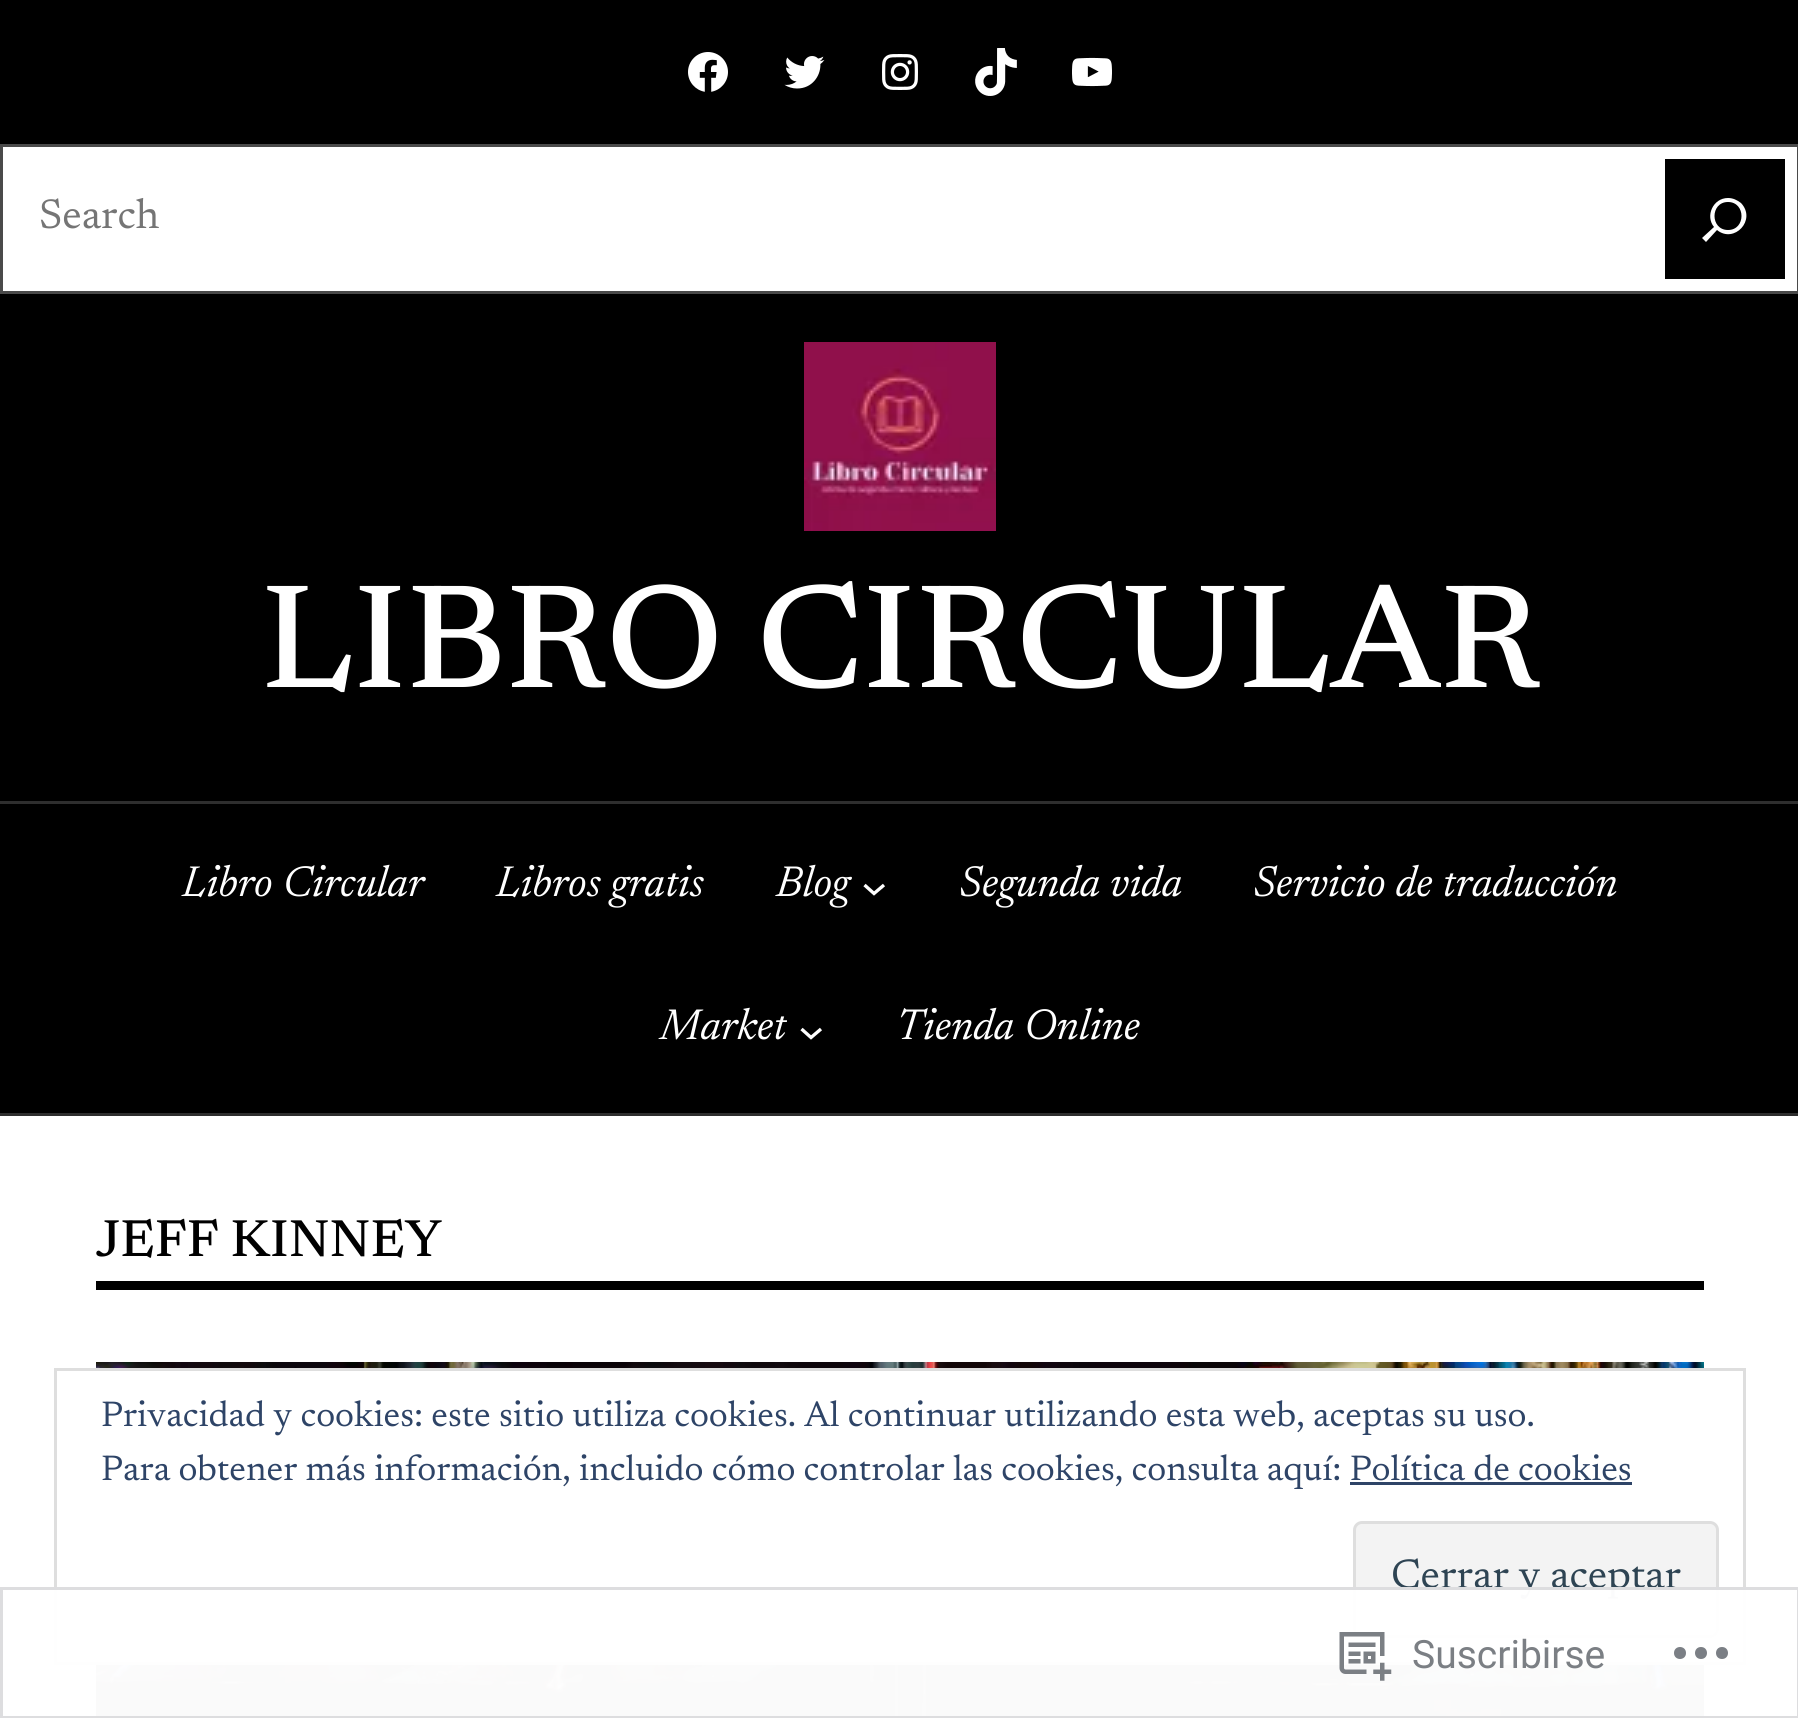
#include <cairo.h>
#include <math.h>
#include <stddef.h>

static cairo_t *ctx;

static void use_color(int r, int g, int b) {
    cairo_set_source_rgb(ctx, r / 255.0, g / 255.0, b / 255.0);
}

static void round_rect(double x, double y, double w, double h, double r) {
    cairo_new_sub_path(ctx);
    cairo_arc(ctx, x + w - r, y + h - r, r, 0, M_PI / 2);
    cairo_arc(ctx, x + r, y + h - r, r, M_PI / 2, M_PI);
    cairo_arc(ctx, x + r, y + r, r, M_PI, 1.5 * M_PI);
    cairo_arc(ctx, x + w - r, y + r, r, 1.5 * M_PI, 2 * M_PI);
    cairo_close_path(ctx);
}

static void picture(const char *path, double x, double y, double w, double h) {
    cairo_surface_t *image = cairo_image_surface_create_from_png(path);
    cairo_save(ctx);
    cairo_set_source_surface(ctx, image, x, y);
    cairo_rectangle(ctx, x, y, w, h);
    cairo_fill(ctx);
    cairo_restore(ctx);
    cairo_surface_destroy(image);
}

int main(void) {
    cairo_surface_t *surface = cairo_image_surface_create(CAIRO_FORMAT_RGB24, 1798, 1718);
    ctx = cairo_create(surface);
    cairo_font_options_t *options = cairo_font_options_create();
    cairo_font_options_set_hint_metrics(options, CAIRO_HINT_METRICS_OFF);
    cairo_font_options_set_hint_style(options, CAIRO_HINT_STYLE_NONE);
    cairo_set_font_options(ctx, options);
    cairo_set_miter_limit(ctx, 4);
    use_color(255, 255, 255);
    cairo_paint(ctx);
    use_color(0, 0, 0);
    cairo_rectangle(ctx, 0, 0, 1798, 1113);
    cairo_fill(ctx);
    picture("img1.png", 688, 52, 40, 40);
    picture("img2.png", 784, 56, 41, 33);
    picture("img3.png", 882, 54, 36, 36);
    picture("img4.png", 975, 48, 42, 48);
    picture("img5.png", 1072, 57, 40, 30);
    use_color(255, 255, 255);
    cairo_rectangle(ctx, 1.5, 145.5, 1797, 147);
    cairo_fill_preserve(ctx);
    use_color(74, 74, 74);
    cairo_set_line_width(ctx, 3);
    cairo_stroke(ctx);
    cairo_select_font_face(ctx, "Newsreader", CAIRO_FONT_SLANT_NORMAL, CAIRO_FONT_WEIGHT_NORMAL);
    cairo_set_font_size(ctx, 42);
    use_color(117, 117, 117);
    cairo_move_to(ctx, 39, 228);
    cairo_show_text(ctx, "Search");
    use_color(0, 0, 0);
    cairo_rectangle(ctx, 1665, 159, 120, 120);
    cairo_fill(ctx);
    use_color(255, 255, 255);
    cairo_new_path(ctx);
    cairo_move_to(ctx, 1728, 198);
    cairo_curve_to(ctx, 1713, 198, 1705, 216, 1714, 227);
    cairo_line_to(ctx, 1702, 238);
    cairo_line_to(ctx, 1706, 242);
    cairo_line_to(ctx, 1717, 230);
    cairo_curve_to(ctx, 1734, 244, 1757, 220, 1741, 203);
    cairo_curve_to(ctx, 1737, 200, 1733, 198, 1728, 198);
    cairo_close_path(ctx);
    cairo_move_to(ctx, 1728, 230);
    cairo_curve_to(ctx, 1710, 230, 1710, 202, 1728, 202);
    cairo_curve_to(ctx, 1746, 202, 1746, 230, 1728, 230);
    cairo_close_path(ctx);
    cairo_fill(ctx);
    picture("img6.png", 804, 342, 192, 189);
    cairo_select_font_face(ctx, "Newsreader Medium", CAIRO_FONT_SLANT_NORMAL, CAIRO_FONT_WEIGHT_NORMAL);
    cairo_set_font_size(ctx, 149.5);
    cairo_move_to(ctx, 261, 687);
    cairo_show_text(ctx, "LIBRO CIRCULAR");
    use_color(46, 46, 46);
    cairo_rectangle(ctx, 0, 801, 1798, 3);
    cairo_fill(ctx);
    cairo_rectangle(ctx, 0, 1113, 1798, 3);
    cairo_fill(ctx);
    cairo_select_font_face(ctx, "Newsreader", CAIRO_FONT_SLANT_ITALIC, CAIRO_FONT_WEIGHT_NORMAL);
    cairo_set_font_size(ctx, 44);
    use_color(255, 255, 255);
    cairo_move_to(ctx, 182, 896);
    cairo_show_text(ctx, "Libro Circular");
    cairo_move_to(ctx, 496, 896);
    cairo_show_text(ctx, "Libros gratis");
    cairo_move_to(ctx, 776, 896);
    cairo_show_text(ctx, "Blog");
    cairo_new_path(ctx);
    cairo_move_to(ctx, 864.5, 885);
    cairo_line_to(ctx, 874, 893.5);
    cairo_line_to(ctx, 884, 885);
    cairo_set_line_width(ctx, 3.3);
    cairo_stroke(ctx);
    cairo_move_to(ctx, 959, 896);
    cairo_show_text(ctx, "Segunda vida");
    cairo_move_to(ctx, 1253, 896);
    cairo_show_text(ctx, "Servicio de traducción");
    cairo_move_to(ctx, 660, 1039);
    cairo_show_text(ctx, "Market");
    cairo_new_path(ctx);
    cairo_move_to(ctx, 801.5, 1029);
    cairo_line_to(ctx, 811, 1037.5);
    cairo_line_to(ctx, 821, 1029);
    cairo_stroke(ctx);
    cairo_move_to(ctx, 896, 1039);
    cairo_show_text(ctx, "Tienda Online");
    use_color(0, 0, 0);
    cairo_rectangle(ctx, 96, 1281, 1608, 9);
    cairo_fill(ctx);
    cairo_select_font_face(ctx, "Newsreader Medium", CAIRO_FONT_SLANT_NORMAL, CAIRO_FONT_WEIGHT_NORMAL);
    cairo_set_font_size(ctx, 52.75);
    cairo_move_to(ctx, 96, 1256);
    cairo_show_text(ctx, "JEFF KINNEY");
    picture("img7.png", 96, 1362, 1608, 356);
    use_color(255, 255, 255);
    cairo_rectangle(ctx, 96, 1371, 1608, 291);
    cairo_fill(ctx);
    cairo_rectangle(ctx, 55.5, 1369.5, 1689, 294);
    use_color(222, 222, 222);
    cairo_set_line_width(ctx, 3);
    cairo_stroke(ctx);
    cairo_select_font_face(ctx, "Newsreader", CAIRO_FONT_SLANT_NORMAL, CAIRO_FONT_WEIGHT_NORMAL);
    cairo_set_font_size(ctx, 36);
    use_color(46, 68, 103);
    cairo_move_to(ctx, 101, 1426);
    cairo_show_text(ctx, "Privacidad y cookies: este sitio utiliza cookies. Al continuar utilizando esta web, aceptas su uso.");
    cairo_move_to(ctx, 101, 1480);
    cairo_show_text(ctx, "Para obtener más información, incluido cómo controlar las cookies, consulta aquí: Política de cookies");
    cairo_rectangle(ctx, 1350, 1482, 282, 3);
    cairo_fill(ctx);
    use_color(243, 243, 243);
    round_rect(1354.5, 1522.5, 363, 114, 7.5);
    cairo_fill_preserve(ctx);
    use_color(222, 222, 222);
    cairo_stroke(ctx);
    cairo_set_font_size(ctx, 42);
    use_color(46, 68, 83);
    cairo_move_to(ctx, 1391, 1588);
    cairo_show_text(ctx, "Cerrar y aceptar");
    cairo_set_source_rgba(ctx, 1, 1, 1, 0.98);
    cairo_rectangle(ctx, 54, 1587, 1692, 131);
    cairo_fill(ctx);
    cairo_rectangle(ctx, 1.5, 1588.5, 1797, 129);
    cairo_set_source_rgba(ctx, 0.863, 0.863, 0.871, 0.98);
    cairo_stroke(ctx);
    picture("img8.png", 1339, 1632, 53, 49);
    cairo_select_font_face(ctx, "Roboto", CAIRO_FONT_SLANT_NORMAL, CAIRO_FONT_WEIGHT_NORMAL);
    cairo_set_font_size(ctx, 39);
    use_color(123, 127, 132);
    cairo_move_to(ctx, 1412, 1668);
    cairo_show_text(ctx, "Suscribirse");
    use_color(123, 127, 133);
    cairo_new_path(ctx);
    cairo_move_to(ctx, 1686, 1653);
    cairo_curve_to(ctx, 1686, 1661, 1674, 1661, 1674, 1653);
    cairo_curve_to(ctx, 1674, 1645, 1686, 1645, 1686, 1653);
    cairo_close_path(ctx);
    cairo_move_to(ctx, 1722, 1647);
    cairo_curve_to(ctx, 1714, 1647, 1714, 1659, 1722, 1659);
    cairo_curve_to(ctx, 1730, 1659, 1730, 1647, 1722, 1647);
    cairo_close_path(ctx);
    cairo_move_to(ctx, 1701, 1647);
    cairo_curve_to(ctx, 1693, 1647, 1693, 1659, 1701, 1659);
    cairo_curve_to(ctx, 1709, 1659, 1709, 1647, 1701, 1647);
    cairo_close_path(ctx);
    cairo_fill(ctx);
    cairo_surface_write_to_png(surface, "result.png");
    cairo_font_options_destroy(options);
    cairo_destroy(ctx);
    cairo_surface_destroy(surface);
    return 0;
}
